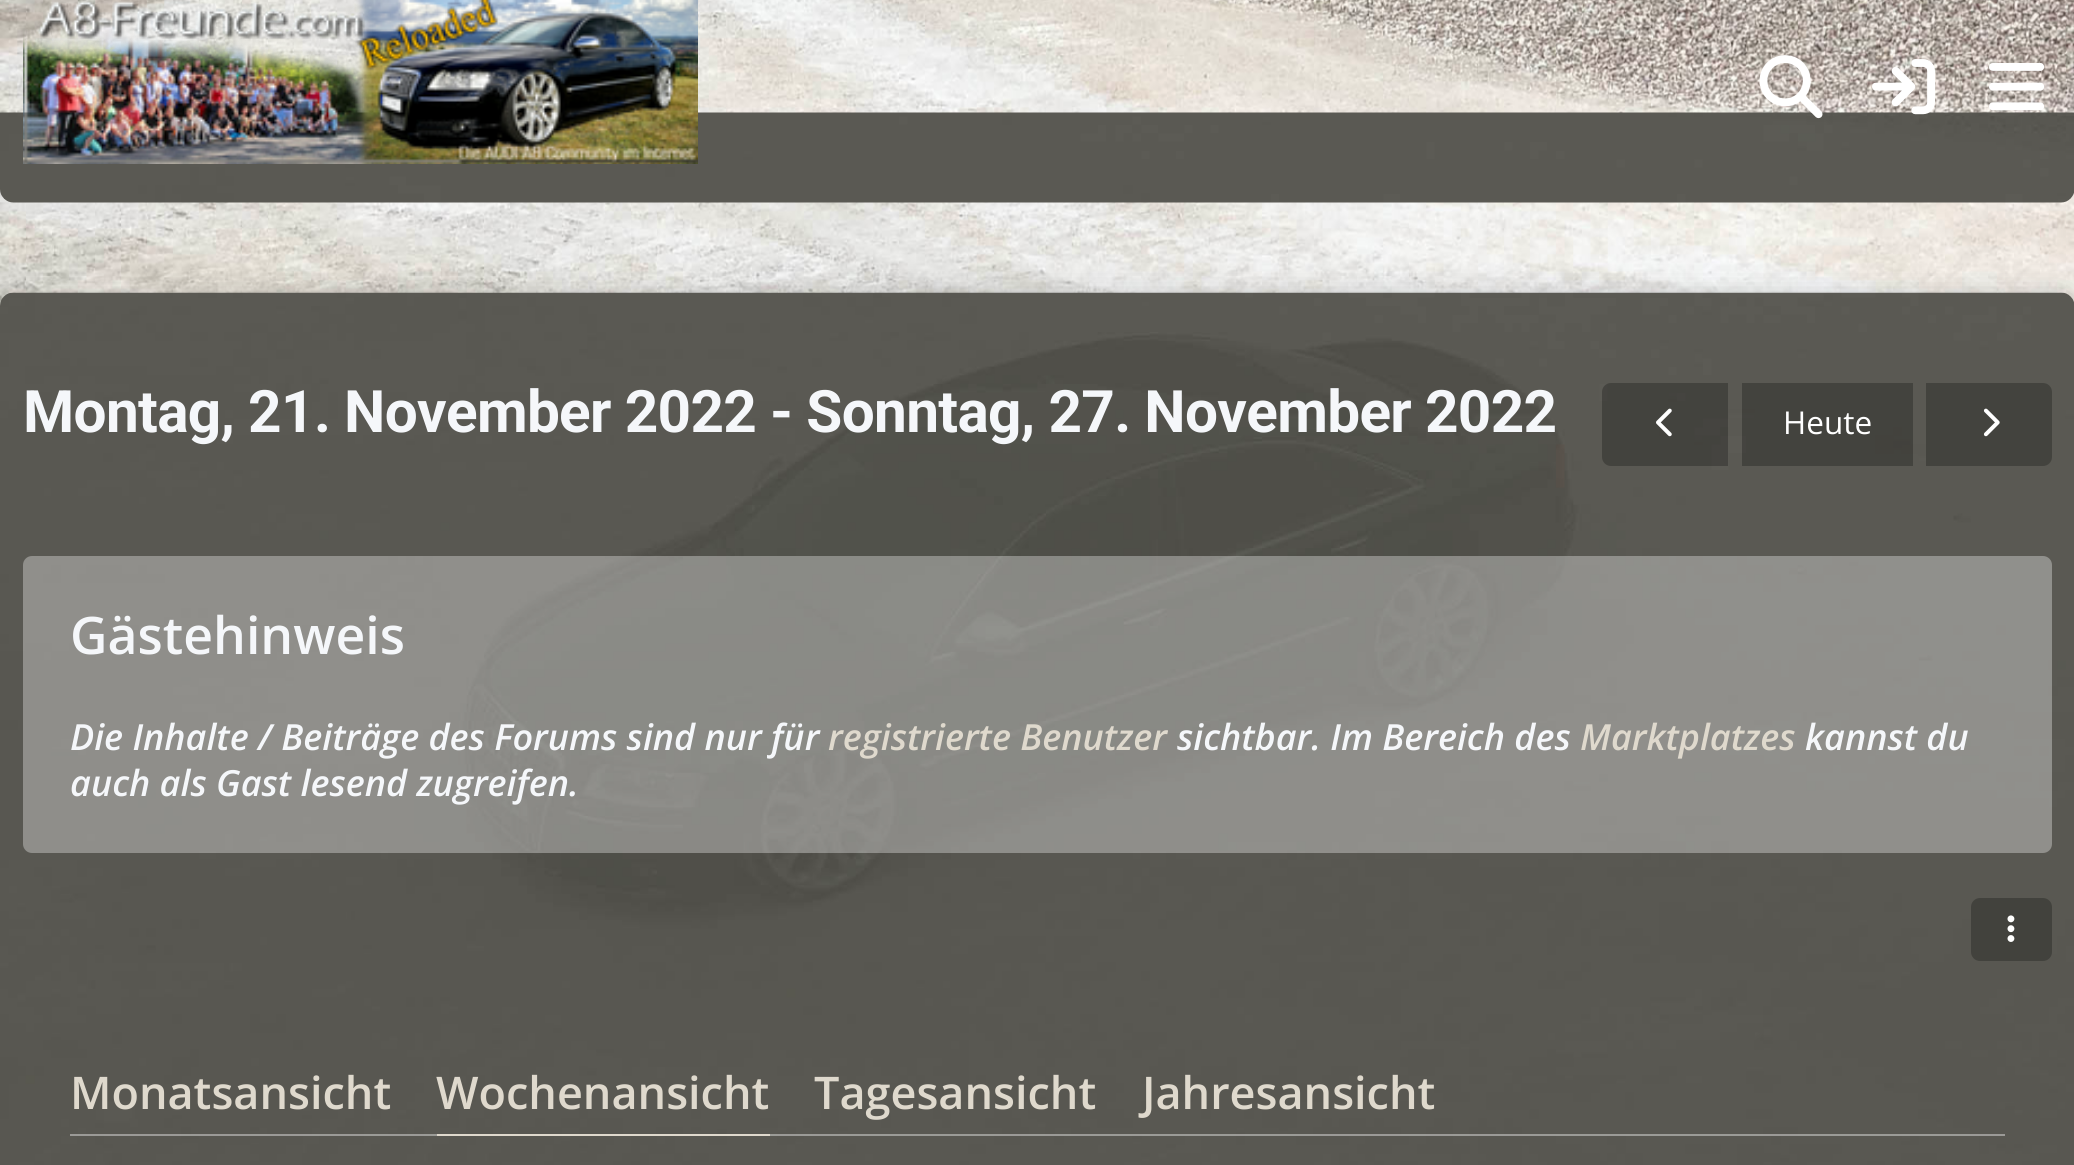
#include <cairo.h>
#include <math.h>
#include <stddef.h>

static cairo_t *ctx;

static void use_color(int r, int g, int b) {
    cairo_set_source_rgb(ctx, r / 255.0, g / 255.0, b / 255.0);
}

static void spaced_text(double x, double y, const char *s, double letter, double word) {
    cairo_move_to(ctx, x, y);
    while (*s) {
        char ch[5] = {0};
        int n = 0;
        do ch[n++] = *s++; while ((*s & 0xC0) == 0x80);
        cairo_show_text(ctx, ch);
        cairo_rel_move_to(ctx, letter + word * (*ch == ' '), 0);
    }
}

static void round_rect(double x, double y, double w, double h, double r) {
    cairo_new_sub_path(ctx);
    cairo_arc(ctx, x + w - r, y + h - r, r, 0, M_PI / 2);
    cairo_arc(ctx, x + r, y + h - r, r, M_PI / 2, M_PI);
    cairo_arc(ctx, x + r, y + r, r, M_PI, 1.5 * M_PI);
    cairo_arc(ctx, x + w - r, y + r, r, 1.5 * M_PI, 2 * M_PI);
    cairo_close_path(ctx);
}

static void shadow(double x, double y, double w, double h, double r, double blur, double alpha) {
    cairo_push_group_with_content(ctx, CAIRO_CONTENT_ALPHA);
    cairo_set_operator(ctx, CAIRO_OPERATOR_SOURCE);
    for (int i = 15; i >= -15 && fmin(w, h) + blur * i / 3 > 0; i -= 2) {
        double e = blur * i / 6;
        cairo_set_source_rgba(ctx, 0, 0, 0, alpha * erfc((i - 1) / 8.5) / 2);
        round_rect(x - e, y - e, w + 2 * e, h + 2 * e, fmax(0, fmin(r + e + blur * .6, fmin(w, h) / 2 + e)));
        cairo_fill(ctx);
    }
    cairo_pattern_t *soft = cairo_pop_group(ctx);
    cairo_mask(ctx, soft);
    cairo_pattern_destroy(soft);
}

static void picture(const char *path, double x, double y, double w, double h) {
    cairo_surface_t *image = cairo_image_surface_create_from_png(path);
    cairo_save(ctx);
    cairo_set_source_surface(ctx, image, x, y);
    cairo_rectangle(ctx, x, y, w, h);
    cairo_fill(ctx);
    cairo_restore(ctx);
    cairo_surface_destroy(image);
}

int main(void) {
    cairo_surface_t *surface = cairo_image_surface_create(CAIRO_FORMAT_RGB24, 2074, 1165);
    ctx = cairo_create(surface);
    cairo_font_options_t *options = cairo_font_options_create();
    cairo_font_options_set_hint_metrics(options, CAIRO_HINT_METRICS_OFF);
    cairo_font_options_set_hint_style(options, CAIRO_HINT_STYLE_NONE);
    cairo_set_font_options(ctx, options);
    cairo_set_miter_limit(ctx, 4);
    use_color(255, 255, 255);
    cairo_paint(ctx);
    picture("img1.png", 0, 0, 2074, 306);
    picture("img6.png", 0, 112, 2074, 91);
    picture("img2.png", 23, 0, 675, 164);
    picture("img3.png", 1759, 55, 64, 64);
    picture("img4.png", 1872, 59, 63, 56);
    picture("img5.png", 1989, 63, 56, 48);
    use_color(0, 0, 0);
    shadow(0, 293, 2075, 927, 14, 13.5, 0.2);
    picture("img7.png", 0, 292, 2074, 873);
    cairo_select_font_face(ctx, "Roboto", CAIRO_FONT_SLANT_NORMAL, CAIRO_FONT_WEIGHT_BOLD);
    cairo_set_font_size(ctx, 58.5);
    use_color(245, 247, 250);
    spaced_text(23, 432, "Montag, 21. November 2022 - Sonntag, 27. November 2022", -0.67, 0);
    cairo_set_source_rgba(ctx, 0, 0, 0, 0.25);
    cairo_new_path(ctx);
    cairo_move_to(ctx, 1611, 383);
    cairo_line_to(ctx, 1728, 383);
    cairo_line_to(ctx, 1728, 466);
    cairo_line_to(ctx, 1611, 466);
    cairo_curve_to(ctx, 1606, 466, 1602, 462, 1602, 457);
    cairo_line_to(ctx, 1602, 392);
    cairo_curve_to(ctx, 1602, 387, 1606, 383, 1611, 383);
    cairo_close_path(ctx);
    cairo_fill(ctx);
    picture("img8.png", 1656, 408, 16, 29);
    cairo_rectangle(ctx, 1742, 383, 171, 83);
    cairo_fill(ctx);
    cairo_select_font_face(ctx, "Open Sans", CAIRO_FONT_SLANT_NORMAL, CAIRO_FONT_WEIGHT_NORMAL);
    cairo_set_font_size(ctx, 31.5);
    use_color(255, 255, 255);
    cairo_move_to(ctx, 1783, 434);
    cairo_show_text(ctx, "Heute");
    use_color(67, 67, 62);
    cairo_new_path(ctx);
    cairo_move_to(ctx, 1926, 383);
    cairo_line_to(ctx, 2043, 383);
    cairo_curve_to(ctx, 2048, 383, 2052, 387, 2052, 392);
    cairo_line_to(ctx, 2052, 457);
    cairo_curve_to(ctx, 2052, 462, 2048, 466, 2043, 466);
    cairo_line_to(ctx, 1926, 466);
    cairo_close_path(ctx);
    cairo_fill(ctx);
    picture("img9.png", 1983, 408, 17, 29);
    cairo_set_source_rgba(ctx, 1, 1, 1, 0.33);
    round_rect(23, 556, 2029, 297, 9);
    cairo_fill(ctx);
    cairo_select_font_face(ctx, "Open Sans SemiBold", CAIRO_FONT_SLANT_NORMAL, CAIRO_FONT_WEIGHT_NORMAL);
    cairo_set_font_size(ctx, 51.75);
    use_color(245, 247, 250);
    cairo_move_to(ctx, 70, 654);
    cairo_show_text(ctx, "Gästehinweis");
    cairo_select_font_face(ctx, "Open Sans SemiBold", CAIRO_FONT_SLANT_ITALIC, CAIRO_FONT_WEIGHT_NORMAL);
    cairo_set_font_size(ctx, 36);
    cairo_move_to(ctx, 70, 750);
    cairo_show_text(ctx, "Die Inhalte / Beiträge des Forums sind nur für");
    use_color(223, 217, 205);
    cairo_move_to(ctx, 828, 750);
    cairo_show_text(ctx, "registrierte Benutzer");
    use_color(245, 247, 250);
    cairo_move_to(ctx, 1177, 750);
    cairo_show_text(ctx, "sichtbar. Im Bereich des");
    use_color(223, 217, 205);
    cairo_move_to(ctx, 1580, 750);
    cairo_show_text(ctx, "Marktplatzes");
    use_color(245, 247, 250);
    cairo_move_to(ctx, 1805, 750);
    cairo_show_text(ctx, "kannst du");
    cairo_move_to(ctx, 70, 796);
    cairo_show_text(ctx, "auch als Gast lesend zugreifen.");
    use_color(66, 66, 61);
    round_rect(1971, 898, 81, 63, 9);
    cairo_fill(ctx);
    picture("img10.png", 2007, 915, 8, 27);
    cairo_set_source_rgba(ctx, 1, 1, 1, 0.4);
    cairo_rectangle(ctx, 70, 1134, 1935, 2);
    cairo_fill(ctx);
    cairo_select_font_face(ctx, "Open Sans SemiBold", CAIRO_FONT_SLANT_NORMAL, CAIRO_FONT_WEIGHT_NORMAL);
    cairo_set_font_size(ctx, 45);
    use_color(223, 217, 205);
    cairo_move_to(ctx, 70, 1109);
    cairo_show_text(ctx, "Monatsansicht");
    cairo_move_to(ctx, 436, 1109);
    cairo_show_text(ctx, "Wochenansicht");
    cairo_rectangle(ctx, 437, 1134, 333, 2);
    cairo_fill(ctx);
    cairo_move_to(ctx, 814, 1109);
    cairo_show_text(ctx, "Tagesansicht");
    cairo_move_to(ctx, 1142, 1109);
    cairo_show_text(ctx, "Jahresansicht");
    cairo_surface_write_to_png(surface, "result.png");
    cairo_font_options_destroy(options);
    cairo_destroy(ctx);
    cairo_surface_destroy(surface);
    return 0;
}
